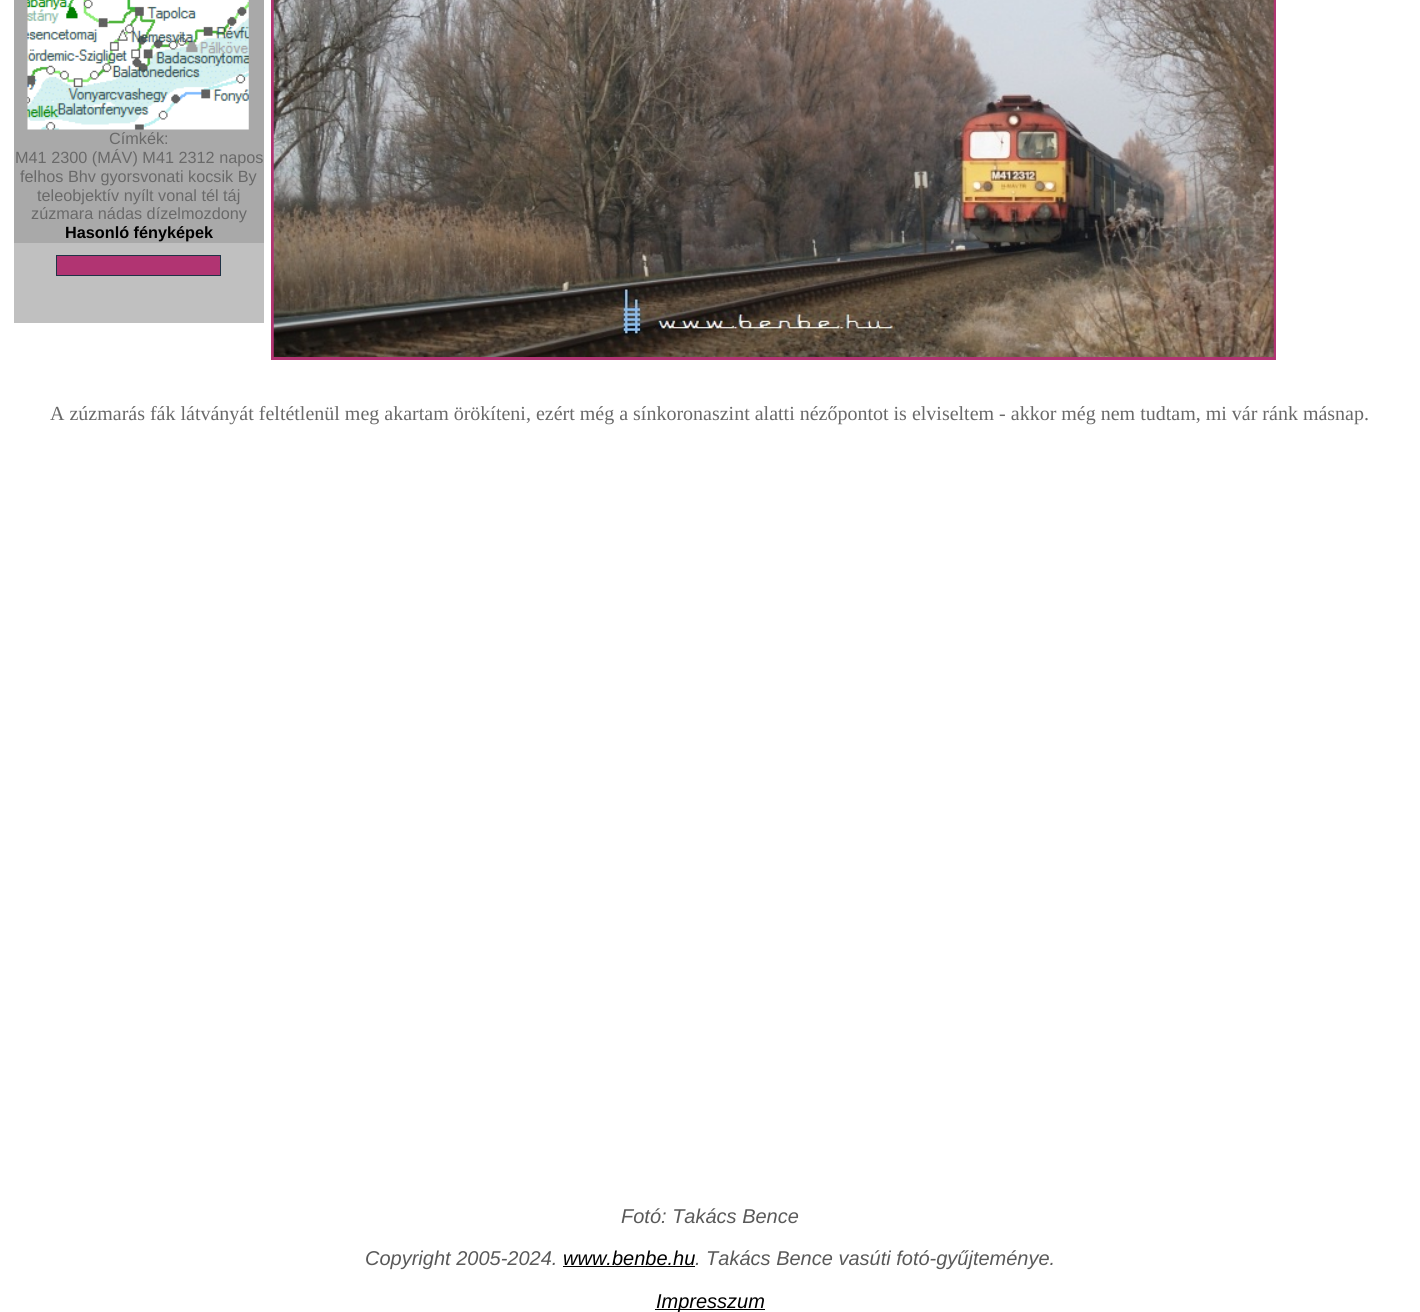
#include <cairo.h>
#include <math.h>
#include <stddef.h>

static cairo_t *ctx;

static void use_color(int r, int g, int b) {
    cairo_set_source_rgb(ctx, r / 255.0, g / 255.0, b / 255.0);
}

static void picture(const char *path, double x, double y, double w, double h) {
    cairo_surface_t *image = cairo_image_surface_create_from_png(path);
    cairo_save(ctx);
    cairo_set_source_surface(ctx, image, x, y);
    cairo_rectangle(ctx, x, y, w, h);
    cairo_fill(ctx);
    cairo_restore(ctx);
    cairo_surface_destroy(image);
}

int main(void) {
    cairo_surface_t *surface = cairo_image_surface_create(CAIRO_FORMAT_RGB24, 1420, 1312);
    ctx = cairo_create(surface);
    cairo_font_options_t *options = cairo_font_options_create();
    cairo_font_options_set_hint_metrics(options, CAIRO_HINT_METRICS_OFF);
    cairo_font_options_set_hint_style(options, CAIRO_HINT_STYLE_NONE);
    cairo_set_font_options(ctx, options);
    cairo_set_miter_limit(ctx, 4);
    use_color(255, 255, 255);
    cairo_paint(ctx);
    use_color(192, 192, 192);
    cairo_rectangle(ctx, 14, 243, 250, 80);
    cairo_fill(ctx);
    use_color(169, 169, 169);
    cairo_rectangle(ctx, 14, 0, 250, 243);
    cairo_fill(ctx);
    picture("img1.png", 27, 0, 222, 130);
    cairo_select_font_face(ctx, "Liberation Sans", CAIRO_FONT_SLANT_NORMAL, CAIRO_FONT_WEIGHT_NORMAL);
    cairo_set_font_size(ctx, 16.25);
    use_color(105, 105, 105);
    cairo_move_to(ctx, 109, 144);
    cairo_show_text(ctx, "Címkék:");
    cairo_move_to(ctx, 15, 163);
    cairo_show_text(ctx, "M41 2300 (MÁV) M41 2312 napos");
    cairo_move_to(ctx, 20, 182);
    cairo_show_text(ctx, "felhos Bhv gyorsvonati kocsik By");
    cairo_move_to(ctx, 37, 201);
    cairo_show_text(ctx, "teleobjektív nyílt vonal tél táj");
    cairo_move_to(ctx, 31, 219);
    cairo_show_text(ctx, "zúzmara nádas dízelmozdony");
    cairo_select_font_face(ctx, "Liberation Sans", CAIRO_FONT_SLANT_NORMAL, CAIRO_FONT_WEIGHT_BOLD);
    use_color(0, 0, 0);
    cairo_move_to(ctx, 65, 238);
    cairo_show_text(ctx, "Hasonló fényképek");
    use_color(177, 52, 114);
    cairo_rectangle(ctx, 56.5, 255.5, 164, 20);
    cairo_fill_preserve(ctx);
    use_color(32, 51, 70);
    cairo_set_line_width(ctx, 1);
    cairo_stroke(ctx);
    cairo_rectangle(ctx, 272.5, -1.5, 1002, 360);
    use_color(177, 52, 114);
    cairo_set_line_width(ctx, 3);
    cairo_stroke(ctx);
    picture("img2.png", 273, 0, 1001, 357);
    cairo_select_font_face(ctx, "Liberation Serif", CAIRO_FONT_SLANT_NORMAL, CAIRO_FONT_WEIGHT_NORMAL);
    cairo_set_font_size(ctx, 20);
    use_color(105, 105, 105);
    cairo_move_to(ctx, 50, 420);
    cairo_show_text(ctx, "A zúzmarás fák látványát feltétlenül meg akartam örökíteni, ezért még a sínkoronaszint alatti nézőpontot is elviseltem - akkor még nem tudtam, mi vár ránk másnap.");
    cairo_select_font_face(ctx, "Liberation Sans", CAIRO_FONT_SLANT_ITALIC, CAIRO_FONT_WEIGHT_NORMAL);
    use_color(89, 89, 89);
    cairo_move_to(ctx, 621, 1223);
    cairo_show_text(ctx, "Fotó: Takács Bence");
    cairo_move_to(ctx, 365, 1265);
    cairo_show_text(ctx, "Copyright 2005-2024.");
    use_color(0, 0, 0);
    cairo_move_to(ctx, 563, 1265);
    cairo_show_text(ctx, "www.benbe.hu");
    cairo_rectangle(ctx, 563, 1266, 132, 1);
    cairo_fill(ctx);
    use_color(89, 89, 89);
    cairo_move_to(ctx, 695, 1265);
    cairo_show_text(ctx, ". Takács Bence vasúti fotó-gyűjteménye.");
    use_color(0, 0, 0);
    cairo_rectangle(ctx, 655, 1309, 110, 1);
    cairo_fill(ctx);
    cairo_move_to(ctx, 656, 1308);
    cairo_show_text(ctx, "Impresszum");
    cairo_surface_write_to_png(surface, "result.png");
    cairo_font_options_destroy(options);
    cairo_destroy(ctx);
    cairo_surface_destroy(surface);
    return 0;
}
